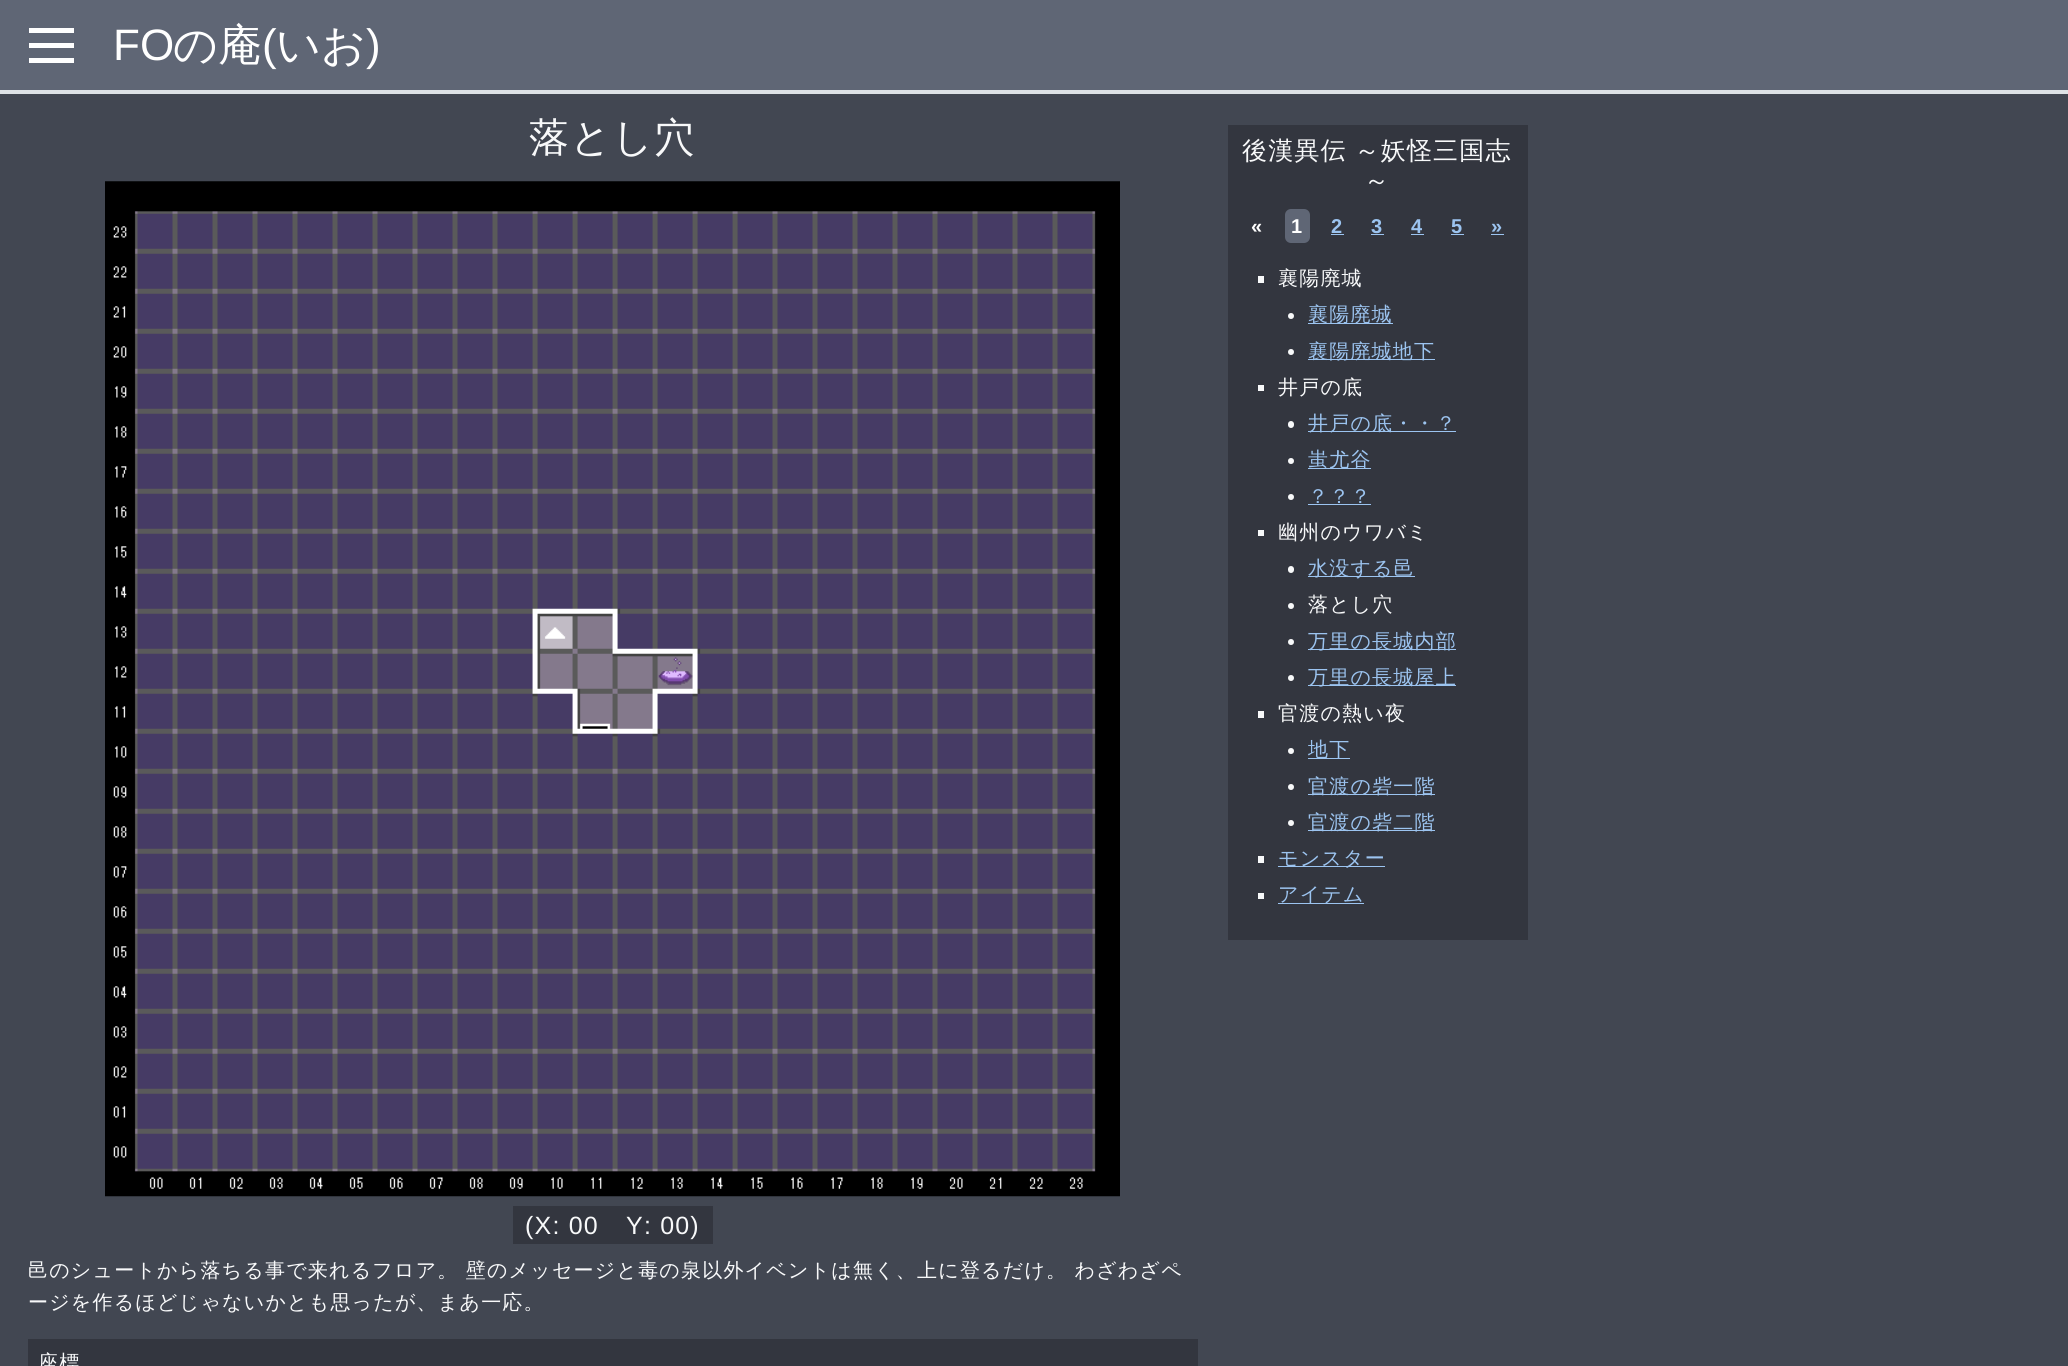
#include <cairo.h>
#include <math.h>
#include <stddef.h>

static cairo_t *ctx;

static void use_color(int r, int g, int b) {
    cairo_set_source_rgb(ctx, r / 255.0, g / 255.0, b / 255.0);
}

static void spaced_text(double x, double y, const char *s, double letter, double word) {
    cairo_move_to(ctx, x, y);
    while (*s) {
        char ch[5] = {0};
        int n = 0;
        do ch[n++] = *s++; while ((*s & 0xC0) == 0x80);
        cairo_show_text(ctx, ch);
        cairo_rel_move_to(ctx, letter + word * (*ch == ' '), 0);
    }
}

static void round_rect(double x, double y, double w, double h, double r) {
    cairo_new_sub_path(ctx);
    cairo_arc(ctx, x + w - r, y + h - r, r, 0, M_PI / 2);
    cairo_arc(ctx, x + r, y + h - r, r, M_PI / 2, M_PI);
    cairo_arc(ctx, x + r, y + r, r, M_PI, 1.5 * M_PI);
    cairo_arc(ctx, x + w - r, y + r, r, 1.5 * M_PI, 2 * M_PI);
    cairo_close_path(ctx);
}

static void picture(const char *path, double x, double y, double w, double h) {
    cairo_surface_t *image = cairo_image_surface_create_from_png(path);
    cairo_save(ctx);
    cairo_set_source_surface(ctx, image, x, y);
    cairo_rectangle(ctx, x, y, w, h);
    cairo_fill(ctx);
    cairo_restore(ctx);
    cairo_surface_destroy(image);
}

int main(void) {
    cairo_surface_t *surface = cairo_image_surface_create(CAIRO_FORMAT_RGB24, 2068, 1366);
    ctx = cairo_create(surface);
    cairo_font_options_t *options = cairo_font_options_create();
    cairo_font_options_set_hint_metrics(options, CAIRO_HINT_METRICS_OFF);
    cairo_font_options_set_hint_style(options, CAIRO_HINT_STYLE_NONE);
    cairo_set_font_options(ctx, options);
    cairo_set_miter_limit(ctx, 4);
    use_color(66, 71, 82);
    cairo_paint(ctx);
    use_color(95, 102, 117);
    cairo_rectangle(ctx, 0, 0, 2068, 90);
    cairo_fill(ctx);
    use_color(222, 226, 230);
    cairo_rectangle(ctx, 0, 90, 2068, 4);
    cairo_fill(ctx);
    use_color(255, 255, 255);
    cairo_rectangle(ctx, 29, 28, 45, 5);
    cairo_fill(ctx);
    cairo_rectangle(ctx, 29, 43, 45, 5);
    cairo_fill(ctx);
    cairo_rectangle(ctx, 29, 58, 45, 5);
    cairo_fill(ctx);
    cairo_select_font_face(ctx, "Liberation Sans", CAIRO_FONT_SLANT_NORMAL, CAIRO_FONT_WEIGHT_NORMAL);
    cairo_set_font_size(ctx, 44);
    cairo_move_to(ctx, 113, 60);
    cairo_show_text(ctx, "FO");
    cairo_select_font_face(ctx, "WenQuanYi Zen Hei Medium", CAIRO_FONT_SLANT_NORMAL, CAIRO_FONT_WEIGHT_NORMAL);
    cairo_move_to(ctx, 173, 60);
    cairo_show_text(ctx, "の庵");
    cairo_select_font_face(ctx, "Liberation Sans", CAIRO_FONT_SLANT_NORMAL, CAIRO_FONT_WEIGHT_NORMAL);
    cairo_move_to(ctx, 262, 60);
    cairo_show_text(ctx, "(");
    cairo_select_font_face(ctx, "WenQuanYi Zen Hei Medium", CAIRO_FONT_SLANT_NORMAL, CAIRO_FONT_WEIGHT_NORMAL);
    cairo_move_to(ctx, 276, 60);
    cairo_show_text(ctx, "いお");
    cairo_select_font_face(ctx, "Liberation Sans", CAIRO_FONT_SLANT_NORMAL, CAIRO_FONT_WEIGHT_NORMAL);
    cairo_move_to(ctx, 366, 60);
    cairo_show_text(ctx, ")");
    cairo_select_font_face(ctx, "WenQuanYi Zen Hei Medium", CAIRO_FONT_SLANT_NORMAL, CAIRO_FONT_WEIGHT_NORMAL);
    cairo_set_font_size(ctx, 40);
    use_color(248, 249, 250);
    spaced_text(529, 151, "落とし穴", 1.2, 0);
    picture("img1.png", 105, 181, 1015, 1016);
    use_color(51, 54, 63);
    cairo_rectangle(ctx, 513, 1206, 200, 38);
    cairo_fill(ctx);
    cairo_select_font_face(ctx, "Liberation Sans", CAIRO_FONT_SLANT_NORMAL, CAIRO_FONT_WEIGHT_NORMAL);
    cairo_set_font_size(ctx, 25);
    use_color(248, 249, 250);
    spaced_text(525, 1234, "(X: 00", 1.2, 0);
    spaced_text(626, 1234, "Y: 00)", 1.2, 0);
    cairo_select_font_face(ctx, "WenQuanYi Zen Hei Medium", CAIRO_FONT_SLANT_NORMAL, CAIRO_FONT_WEIGHT_NORMAL);
    cairo_set_font_size(ctx, 20);
    spaced_text(28, 1277, "邑のシュートから落ちる事で来れるフロア。 壁のメッセージと毒の泉以外イベントは無く、上に登るだけ。 わざわざペ", 1.2, 0);
    spaced_text(28, 1309, "ージを作るほどじゃないかとも思ったが、まあ一応。", 1.2, 0);
    use_color(51, 54, 63);
    cairo_rectangle(ctx, 28, 1339, 1170, 27);
    cairo_fill(ctx);
    use_color(248, 249, 250);
    spaced_text(38, 1369, "座標", 1.2, 0);
    use_color(51, 54, 63);
    cairo_rectangle(ctx, 1228, 125, 300, 815);
    cairo_fill(ctx);
    cairo_set_font_size(ctx, 25);
    use_color(248, 249, 250);
    spaced_text(1242, 159, "後漢異伝 ～妖怪三国志", 1.2, -1);
    spaced_text(1364, 189, "～", 1.2, 0);
    cairo_select_font_face(ctx, "Liberation Sans", CAIRO_FONT_SLANT_NORMAL, CAIRO_FONT_WEIGHT_BOLD);
    cairo_set_font_size(ctx, 20);
    use_color(255, 255, 255);
    spaced_text(1251, 233, "«", 1.2, 0);
    use_color(95, 102, 117);
    round_rect(1285, 209, 25, 34, 6);
    cairo_fill(ctx);
    use_color(255, 255, 255);
    spaced_text(1291, 233, "1", 1.2, 0);
    use_color(156, 196, 240);
    spaced_text(1331, 233, "2", 1.2, 0);
    cairo_rectangle(ctx, 1331, 234, 13, 1);
    cairo_fill(ctx);
    spaced_text(1371, 233, "3", 1.2, 0);
    cairo_rectangle(ctx, 1371, 234, 13, 1);
    cairo_fill(ctx);
    spaced_text(1411, 233, "4", 1.2, 0);
    cairo_rectangle(ctx, 1411, 234, 13, 1);
    cairo_fill(ctx);
    spaced_text(1451, 233, "5", 1.2, 0);
    cairo_rectangle(ctx, 1451, 234, 13, 1);
    cairo_fill(ctx);
    spaced_text(1491, 233, "»", 1.2, 0);
    cairo_rectangle(ctx, 1491, 234, 13, 1);
    cairo_fill(ctx);
    use_color(248, 249, 250);
    cairo_rectangle(ctx, 1258, 276, 6, 7);
    cairo_fill(ctx);
    cairo_select_font_face(ctx, "WenQuanYi Zen Hei Medium", CAIRO_FONT_SLANT_NORMAL, CAIRO_FONT_WEIGHT_NORMAL);
    spaced_text(1278, 285, "襄陽廃城", 1.2, 0);
    cairo_new_path(ctx);
    cairo_arc(ctx, 1291, 316, 3, 0, 2 * M_PI);
    cairo_fill(ctx);
    use_color(156, 196, 240);
    cairo_rectangle(ctx, 1308, 323, 85, 1);
    cairo_fill(ctx);
    spaced_text(1308, 321, "襄陽廃城", 1.2, 0);
    use_color(248, 249, 250);
    cairo_new_path(ctx);
    cairo_arc(ctx, 1291, 352, 3, 0, 2 * M_PI);
    cairo_fill(ctx);
    use_color(156, 196, 240);
    cairo_rectangle(ctx, 1308, 359, 127, 1);
    cairo_fill(ctx);
    spaced_text(1308, 358, "襄陽廃城地下", 1.2, 0);
    use_color(248, 249, 250);
    cairo_rectangle(ctx, 1258, 385, 6, 6);
    cairo_fill(ctx);
    spaced_text(1278, 394, "井戸の底", 1.2, 0);
    round_rect(1288, 421, 6, 7, 3);
    cairo_fill(ctx);
    use_color(156, 196, 240);
    cairo_rectangle(ctx, 1308, 431, 148, 1);
    cairo_fill(ctx);
    spaced_text(1308, 430, "井戸の底・・？", 1.2, 0);
    use_color(248, 249, 250);
    cairo_new_path(ctx);
    cairo_arc(ctx, 1291, 461, 3, 0, 2 * M_PI);
    cairo_fill(ctx);
    use_color(156, 196, 240);
    cairo_rectangle(ctx, 1308, 468, 63, 1);
    cairo_fill(ctx);
    spaced_text(1308, 466, "蚩尤谷", 1.2, 0);
    use_color(248, 249, 250);
    cairo_new_path(ctx);
    cairo_arc(ctx, 1291, 497, 3, 0, 2 * M_PI);
    cairo_fill(ctx);
    use_color(156, 196, 240);
    spaced_text(1308, 503, "？？？", 1.2, 0);
    cairo_rectangle(ctx, 1308, 504, 63, 1);
    cairo_fill(ctx);
    use_color(248, 249, 250);
    cairo_rectangle(ctx, 1258, 530, 6, 6);
    cairo_fill(ctx);
    spaced_text(1278, 539, "幽州のウワバミ", 1.2, 0);
    round_rect(1288, 566, 6, 7, 3);
    cairo_fill(ctx);
    use_color(156, 196, 240);
    cairo_rectangle(ctx, 1308, 576, 107, 1);
    cairo_fill(ctx);
    spaced_text(1308, 575, "水没する邑", 1.2, 0);
    use_color(248, 249, 250);
    cairo_new_path(ctx);
    cairo_arc(ctx, 1291, 606, 3, 0, 2 * M_PI);
    cairo_fill(ctx);
    spaced_text(1308, 611, "落とし穴", 1.2, 0);
    cairo_new_path(ctx);
    cairo_arc(ctx, 1291, 642, 3, 0, 2 * M_PI);
    cairo_fill(ctx);
    use_color(156, 196, 240);
    cairo_rectangle(ctx, 1308, 649, 148, 1);
    cairo_fill(ctx);
    spaced_text(1308, 648, "万里の長城内部", 1.2, 0);
    use_color(248, 249, 250);
    cairo_new_path(ctx);
    cairo_arc(ctx, 1291, 678, 3, 0, 2 * M_PI);
    cairo_fill(ctx);
    use_color(156, 196, 240);
    cairo_rectangle(ctx, 1308, 685, 148, 1);
    cairo_fill(ctx);
    spaced_text(1308, 684, "万里の長城屋上", 1.2, 0);
    use_color(248, 249, 250);
    cairo_rectangle(ctx, 1258, 711, 6, 7);
    cairo_fill(ctx);
    spaced_text(1278, 720, "官渡の熱い夜", 1.2, 0);
    cairo_new_path(ctx);
    cairo_arc(ctx, 1291, 751, 3, 0, 2 * M_PI);
    cairo_fill(ctx);
    use_color(156, 196, 240);
    cairo_rectangle(ctx, 1308, 758, 42, 1);
    cairo_fill(ctx);
    spaced_text(1308, 756, "地下", 1.2, 0);
    use_color(248, 249, 250);
    cairo_new_path(ctx);
    cairo_arc(ctx, 1291, 787, 3, 0, 2 * M_PI);
    cairo_fill(ctx);
    use_color(156, 196, 240);
    cairo_rectangle(ctx, 1308, 794, 127, 1);
    cairo_fill(ctx);
    spaced_text(1308, 793, "官渡の砦一階", 1.2, 0);
    use_color(248, 249, 250);
    cairo_new_path(ctx);
    cairo_arc(ctx, 1291, 823, 3, 0, 2 * M_PI);
    cairo_fill(ctx);
    use_color(156, 196, 240);
    cairo_rectangle(ctx, 1308, 830, 127, 1);
    cairo_fill(ctx);
    spaced_text(1308, 829, "官渡の砦二階", 1.2, 0);
    use_color(248, 249, 250);
    cairo_rectangle(ctx, 1258, 856, 6, 7);
    cairo_fill(ctx);
    use_color(156, 196, 240);
    cairo_rectangle(ctx, 1278, 866, 107, 1);
    cairo_fill(ctx);
    spaced_text(1278, 865, "モンスター", 1.2, 0);
    use_color(248, 249, 250);
    cairo_rectangle(ctx, 1258, 893, 6, 6);
    cairo_fill(ctx);
    use_color(156, 196, 240);
    cairo_rectangle(ctx, 1278, 903, 86, 1);
    cairo_fill(ctx);
    spaced_text(1278, 901, "アイテム", 1.2, 0);
    cairo_surface_write_to_png(surface, "result.png");
    cairo_font_options_destroy(options);
    cairo_destroy(ctx);
    cairo_surface_destroy(surface);
    return 0;
}
